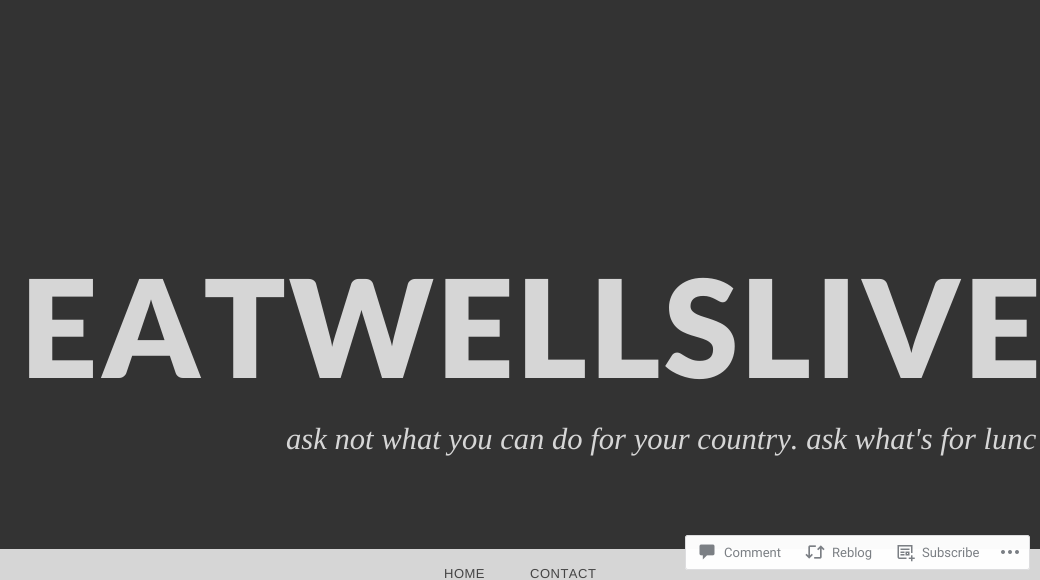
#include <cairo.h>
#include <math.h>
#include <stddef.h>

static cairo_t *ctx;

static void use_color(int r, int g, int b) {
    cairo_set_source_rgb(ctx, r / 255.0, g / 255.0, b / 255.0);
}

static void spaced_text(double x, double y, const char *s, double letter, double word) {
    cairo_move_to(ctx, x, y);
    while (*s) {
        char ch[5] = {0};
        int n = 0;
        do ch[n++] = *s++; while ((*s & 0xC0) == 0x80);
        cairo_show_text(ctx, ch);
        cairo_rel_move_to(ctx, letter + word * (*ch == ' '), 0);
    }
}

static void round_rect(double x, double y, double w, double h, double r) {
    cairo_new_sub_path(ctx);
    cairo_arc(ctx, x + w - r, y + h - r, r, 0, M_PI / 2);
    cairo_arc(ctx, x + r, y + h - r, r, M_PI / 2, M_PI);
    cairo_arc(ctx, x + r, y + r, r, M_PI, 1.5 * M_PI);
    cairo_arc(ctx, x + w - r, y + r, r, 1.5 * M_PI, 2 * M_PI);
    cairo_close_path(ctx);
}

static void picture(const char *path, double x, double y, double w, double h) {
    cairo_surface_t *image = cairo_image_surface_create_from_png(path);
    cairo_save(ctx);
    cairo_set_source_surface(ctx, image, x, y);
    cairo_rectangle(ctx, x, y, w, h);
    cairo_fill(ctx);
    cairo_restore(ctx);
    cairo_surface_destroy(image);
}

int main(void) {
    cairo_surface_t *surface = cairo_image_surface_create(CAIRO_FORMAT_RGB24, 1040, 580);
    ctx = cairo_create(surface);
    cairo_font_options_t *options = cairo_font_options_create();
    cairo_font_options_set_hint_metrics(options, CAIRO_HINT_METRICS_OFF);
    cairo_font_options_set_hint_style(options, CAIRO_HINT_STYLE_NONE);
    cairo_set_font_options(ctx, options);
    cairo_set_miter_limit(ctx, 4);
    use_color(51, 51, 51);
    cairo_paint(ctx);
    cairo_select_font_face(ctx, "Lato Black", CAIRO_FONT_SLANT_NORMAL, CAIRO_FONT_WEIGHT_NORMAL);
    cairo_set_font_size(ctx, 136);
    use_color(214, 214, 214);
    spaced_text(21, 378, "EATWELLSLIVE", 3, 0);
    cairo_select_font_face(ctx, "Liberation Serif", CAIRO_FONT_SLANT_ITALIC, CAIRO_FONT_WEIGHT_NORMAL);
    cairo_set_font_size(ctx, 30.6);
    cairo_move_to(ctx, 286, 449);
    cairo_show_text(ctx, "ask not what you can do for your country. ask what's for lunc");
    cairo_rectangle(ctx, 0, 549, 1040, 31);
    cairo_fill(ctx);
    cairo_select_font_face(ctx, "Liberation Sans", CAIRO_FONT_SLANT_NORMAL, CAIRO_FONT_WEIGHT_NORMAL);
    cairo_set_font_size(ctx, 13);
    use_color(68, 68, 68);
    spaced_text(444, 578, "HOME", 0.5, 0);
    spaced_text(530, 578, "CONTACT", 0.5, 0);
    cairo_set_source_rgba(ctx, 1, 1, 1, 0.98);
    round_rect(685, 535, 345, 35, 3);
    cairo_fill(ctx);
    round_rect(685.5, 535.5, 344, 34, 2.5);
    cairo_set_source_rgba(ctx, 0.863, 0.863, 0.871, 0.98);
    cairo_set_line_width(ctx, 1);
    cairo_stroke(ctx);
    picture("img1.png", 699, 544, 16, 16);
    cairo_select_font_face(ctx, "Roboto", CAIRO_FONT_SLANT_NORMAL, CAIRO_FONT_WEIGHT_NORMAL);
    use_color(123, 127, 132);
    cairo_move_to(ctx, 724, 557);
    cairo_show_text(ctx, "Comment");
    picture("img2.png", 805, 545, 20, 14);
    cairo_move_to(ctx, 832, 557);
    cairo_show_text(ctx, "Reblog");
    picture("img3.png", 897, 545, 18, 17);
    cairo_move_to(ctx, 922, 557);
    cairo_show_text(ctx, "Subscribe");
    picture("img4.png", 1001, 550, 18, 4);
    cairo_surface_write_to_png(surface, "result.png");
    cairo_font_options_destroy(options);
    cairo_destroy(ctx);
    cairo_surface_destroy(surface);
    return 0;
}
